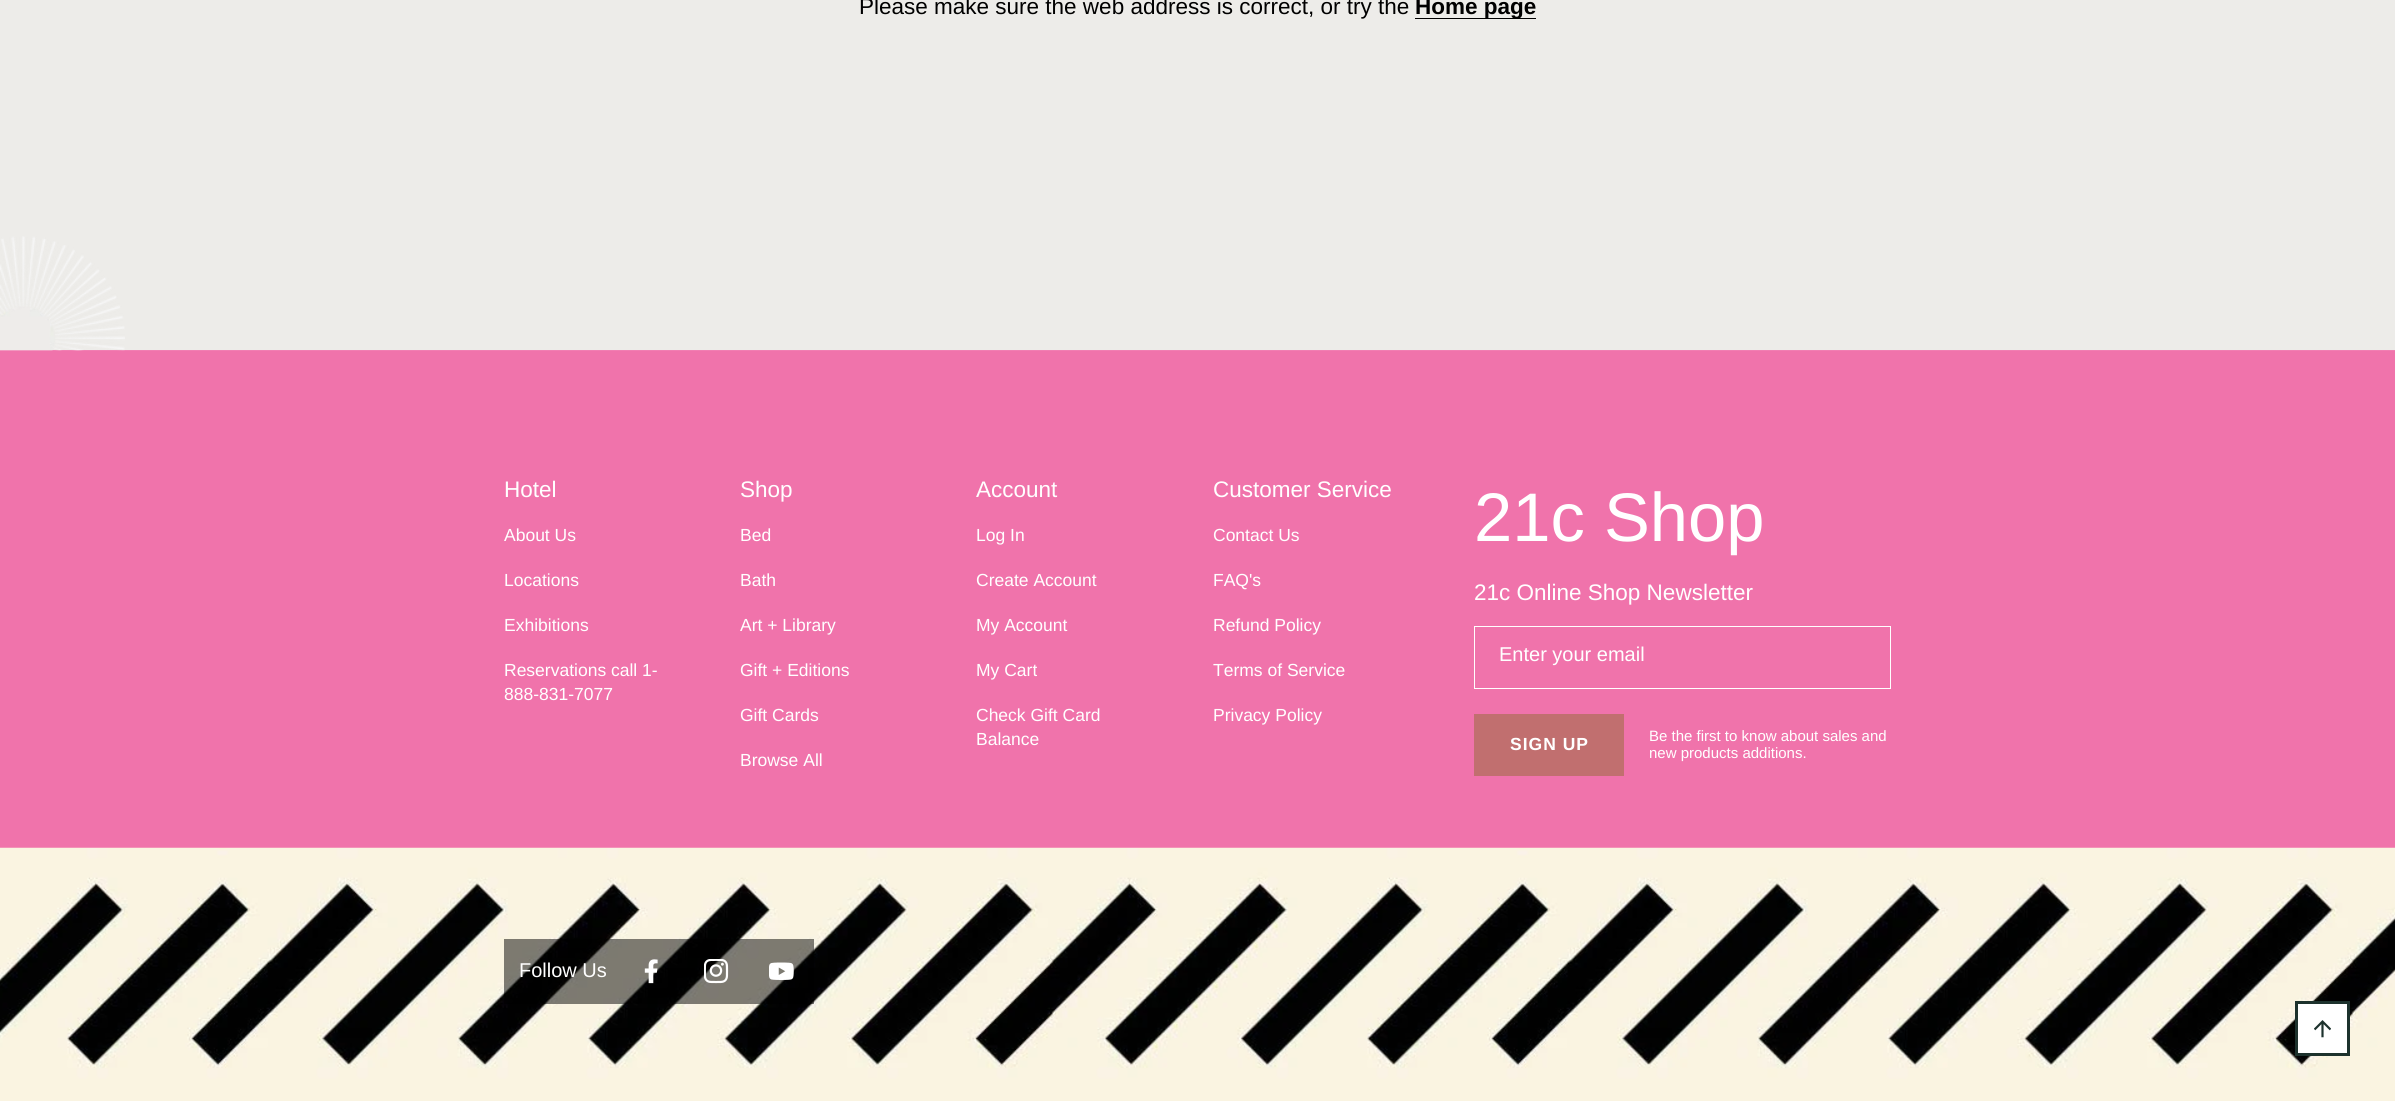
#include <cairo.h>
#include <math.h>
#include <stddef.h>

static cairo_t *ctx;

static void use_color(int r, int g, int b) {
    cairo_set_source_rgb(ctx, r / 255.0, g / 255.0, b / 255.0);
}

static void spaced_text(double x, double y, const char *s, double letter, double word) {
    cairo_move_to(ctx, x, y);
    while (*s) {
        char ch[5] = {0};
        int n = 0;
        do ch[n++] = *s++; while ((*s & 0xC0) == 0x80);
        cairo_show_text(ctx, ch);
        cairo_rel_move_to(ctx, letter + word * (*ch == ' '), 0);
    }
}

static void picture(const char *path, double x, double y, double w, double h) {
    cairo_surface_t *image = cairo_image_surface_create_from_png(path);
    cairo_save(ctx);
    cairo_set_source_surface(ctx, image, x, y);
    cairo_rectangle(ctx, x, y, w, h);
    cairo_fill(ctx);
    cairo_restore(ctx);
    cairo_surface_destroy(image);
}

int main(void) {
    cairo_surface_t *surface = cairo_image_surface_create(CAIRO_FORMAT_RGB24, 2395, 1101);
    ctx = cairo_create(surface);
    cairo_font_options_t *options = cairo_font_options_create();
    cairo_font_options_set_hint_metrics(options, CAIRO_HINT_METRICS_OFF);
    cairo_font_options_set_hint_style(options, CAIRO_HINT_STYLE_NONE);
    cairo_set_font_options(ctx, options);
    cairo_set_miter_limit(ctx, 4);
    use_color(240, 115, 171);
    cairo_paint(ctx);
    use_color(237, 236, 233);
    cairo_rectangle(ctx, 0, 0, 2395, 350);
    cairo_fill(ctx);
    use_color(241, 126, 178);
    cairo_rectangle(ctx, 0, 350, 2395, 1);
    cairo_fill(ctx);
    picture("img1.png", 0, 236, 125, 115);
    cairo_select_font_face(ctx, "Liberation Sans", CAIRO_FONT_SLANT_NORMAL, CAIRO_FONT_WEIGHT_NORMAL);
    cairo_set_font_size(ctx, 22.5);
    use_color(0, 0, 0);
    cairo_move_to(ctx, 859, 14);
    cairo_show_text(ctx, "Please make sure the web address is correct, or try the");
    cairo_rectangle(ctx, 1415, 18, 121, 1);
    cairo_fill(ctx);
    cairo_select_font_face(ctx, "Liberation Sans", CAIRO_FONT_SLANT_NORMAL, CAIRO_FONT_WEIGHT_BOLD);
    cairo_move_to(ctx, 1415, 14);
    cairo_show_text(ctx, "Home page");
    picture("img2.png", 0, 847, 2395, 254);
    cairo_select_font_face(ctx, "Liberation Sans", CAIRO_FONT_SLANT_NORMAL, CAIRO_FONT_WEIGHT_NORMAL);
    use_color(255, 255, 255);
    cairo_move_to(ctx, 504, 497);
    cairo_show_text(ctx, "Hotel");
    cairo_set_font_size(ctx, 17.5);
    cairo_move_to(ctx, 504, 541);
    cairo_show_text(ctx, "About Us");
    cairo_move_to(ctx, 504, 586);
    cairo_show_text(ctx, "Locations");
    cairo_move_to(ctx, 504, 631);
    cairo_show_text(ctx, "Exhibitions");
    cairo_move_to(ctx, 504, 676);
    cairo_show_text(ctx, "Reservations call 1-");
    cairo_move_to(ctx, 504, 700);
    cairo_show_text(ctx, "888-831-7077");
    cairo_set_font_size(ctx, 22.5);
    cairo_move_to(ctx, 740, 497);
    cairo_show_text(ctx, "Shop");
    cairo_set_font_size(ctx, 17.5);
    cairo_move_to(ctx, 740, 541);
    cairo_show_text(ctx, "Bed");
    cairo_move_to(ctx, 740, 586);
    cairo_show_text(ctx, "Bath");
    cairo_move_to(ctx, 740, 631);
    cairo_show_text(ctx, "Art + Library");
    cairo_move_to(ctx, 740, 676);
    cairo_show_text(ctx, "Gift + Editions");
    cairo_move_to(ctx, 740, 721);
    cairo_show_text(ctx, "Gift Cards");
    cairo_move_to(ctx, 740, 766);
    cairo_show_text(ctx, "Browse All");
    cairo_set_font_size(ctx, 22.5);
    cairo_move_to(ctx, 976, 497);
    cairo_show_text(ctx, "Account");
    cairo_set_font_size(ctx, 17.5);
    cairo_move_to(ctx, 976, 541);
    cairo_show_text(ctx, "Log In");
    cairo_move_to(ctx, 976, 586);
    cairo_show_text(ctx, "Create Account");
    cairo_move_to(ctx, 976, 631);
    cairo_show_text(ctx, "My Account");
    cairo_move_to(ctx, 976, 676);
    cairo_show_text(ctx, "My Cart");
    cairo_move_to(ctx, 976, 721);
    cairo_show_text(ctx, "Check Gift Card");
    cairo_move_to(ctx, 976, 745);
    cairo_show_text(ctx, "Balance");
    cairo_set_font_size(ctx, 22.5);
    cairo_move_to(ctx, 1213, 497);
    cairo_show_text(ctx, "Customer Service");
    cairo_set_font_size(ctx, 17.5);
    cairo_move_to(ctx, 1213, 541);
    cairo_show_text(ctx, "Contact Us");
    cairo_move_to(ctx, 1213, 586);
    cairo_show_text(ctx, "FAQ's");
    cairo_move_to(ctx, 1213, 631);
    cairo_show_text(ctx, "Refund Policy");
    cairo_move_to(ctx, 1213, 676);
    cairo_show_text(ctx, "Terms of Service");
    cairo_move_to(ctx, 1213, 721);
    cairo_show_text(ctx, "Privacy Policy");
    cairo_set_font_size(ctx, 68.75);
    cairo_move_to(ctx, 1474, 541);
    cairo_show_text(ctx, "21c Shop");
    cairo_set_font_size(ctx, 22.5);
    cairo_move_to(ctx, 1474, 600);
    cairo_show_text(ctx, "21c Online Shop Newsletter");
    cairo_rectangle(ctx, 1474.5, 626.5, 416, 62);
    cairo_set_line_width(ctx, 1);
    cairo_stroke(ctx);
    cairo_set_font_size(ctx, 20);
    cairo_move_to(ctx, 1499, 661);
    cairo_show_text(ctx, "Enter your email");
    use_color(193, 111, 111);
    cairo_rectangle(ctx, 1474, 714, 150, 62);
    cairo_fill(ctx);
    cairo_select_font_face(ctx, "Liberation Sans", CAIRO_FONT_SLANT_NORMAL, CAIRO_FONT_WEIGHT_BOLD);
    cairo_set_font_size(ctx, 17.5);
    use_color(255, 255, 255);
    spaced_text(1510, 750, "SIGN UP", 1, 0);
    cairo_select_font_face(ctx, "Liberation Sans", CAIRO_FONT_SLANT_NORMAL, CAIRO_FONT_WEIGHT_NORMAL);
    cairo_set_font_size(ctx, 15);
    cairo_move_to(ctx, 1649, 741);
    cairo_show_text(ctx, "Be the first to know about sales and");
    cairo_move_to(ctx, 1649, 758);
    cairo_show_text(ctx, "new products additions.");
    cairo_set_source_rgba(ctx, 0, 0, 0, 0.5);
    cairo_rectangle(ctx, 504, 939, 310, 65);
    cairo_fill(ctx);
    cairo_set_font_size(ctx, 20);
    use_color(255, 255, 255);
    cairo_move_to(ctx, 519, 977);
    cairo_show_text(ctx, "Follow Us");
    picture("img3.png", 644, 959, 14, 25);
    picture("img4.png", 704, 959, 25, 25);
    picture("img5.png", 769, 962, 25, 18);
    cairo_rectangle(ctx, 2296.5, 1002.5, 52, 52);
    cairo_fill_preserve(ctx);
    use_color(29, 50, 45);
    cairo_set_line_width(ctx, 3);
    cairo_stroke(ctx);
    picture("img6.png", 2314, 1020, 17, 18);
    cairo_surface_write_to_png(surface, "result.png");
    cairo_font_options_destroy(options);
    cairo_destroy(ctx);
    cairo_surface_destroy(surface);
    return 0;
}
